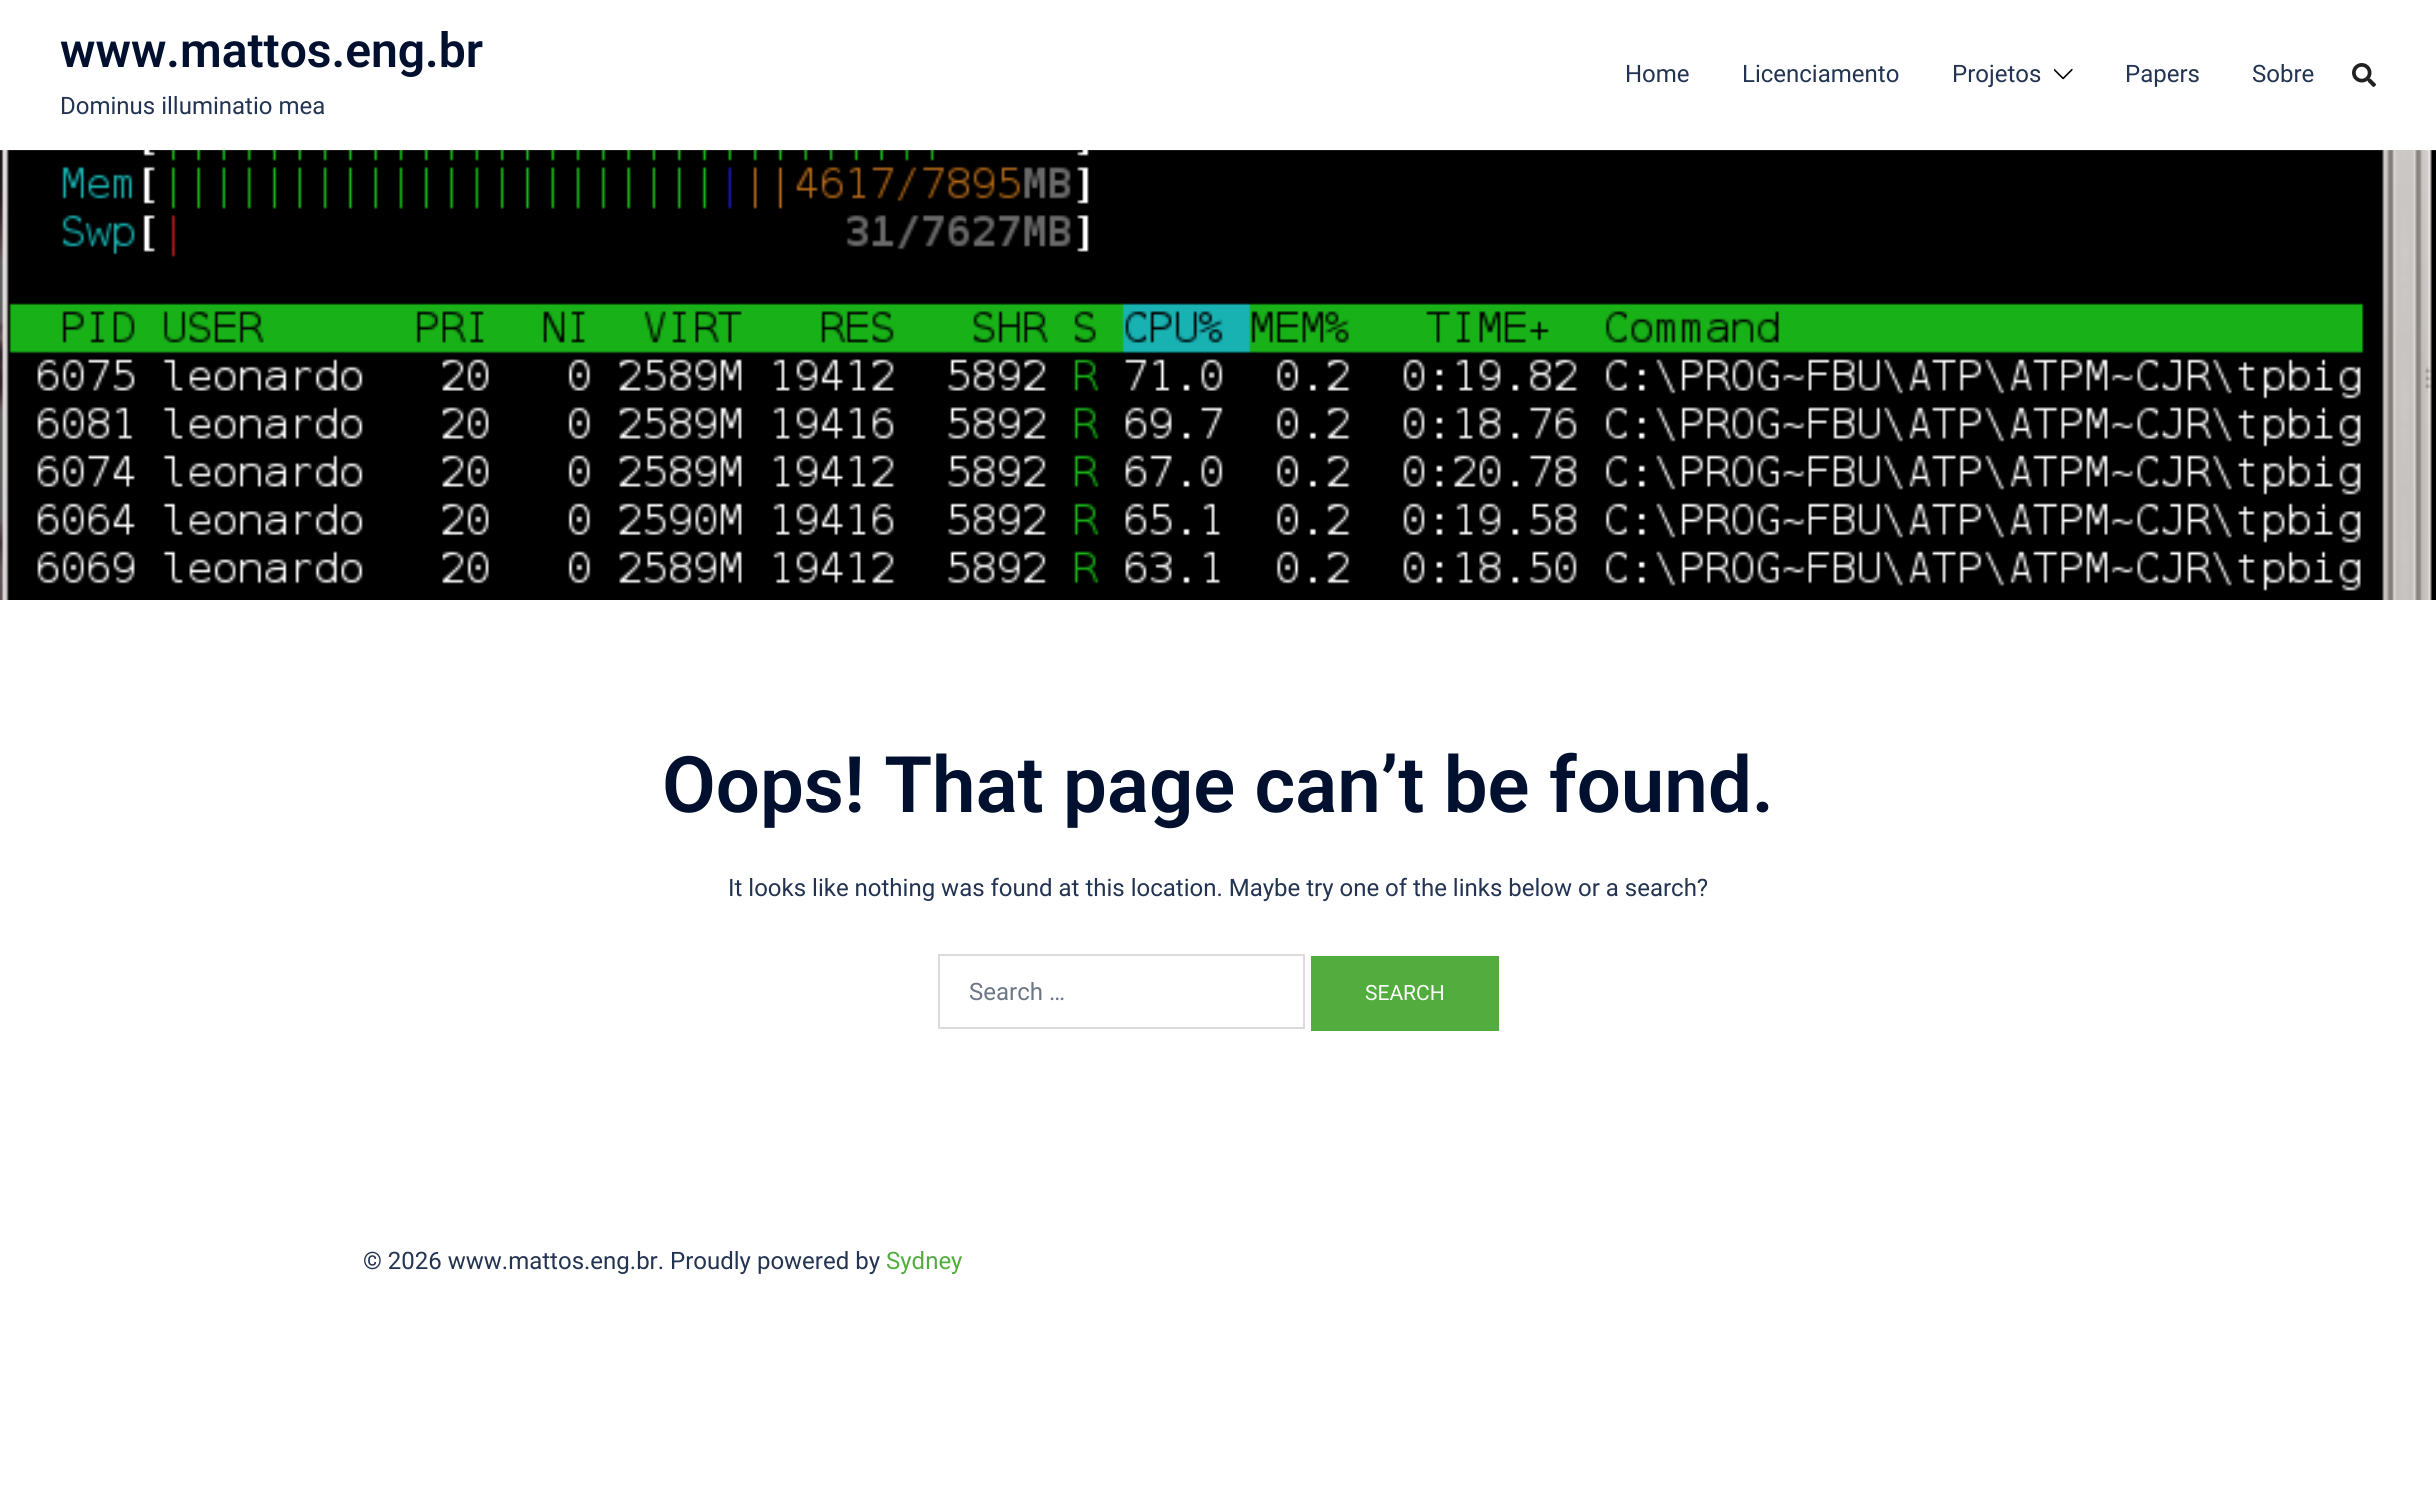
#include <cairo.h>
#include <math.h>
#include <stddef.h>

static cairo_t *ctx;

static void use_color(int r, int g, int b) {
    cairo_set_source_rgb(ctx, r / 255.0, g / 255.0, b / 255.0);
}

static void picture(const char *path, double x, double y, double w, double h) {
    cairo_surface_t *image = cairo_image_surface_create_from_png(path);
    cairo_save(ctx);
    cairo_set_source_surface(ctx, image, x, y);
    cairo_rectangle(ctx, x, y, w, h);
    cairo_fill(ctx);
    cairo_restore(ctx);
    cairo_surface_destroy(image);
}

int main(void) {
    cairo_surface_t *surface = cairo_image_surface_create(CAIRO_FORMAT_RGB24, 2436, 1512);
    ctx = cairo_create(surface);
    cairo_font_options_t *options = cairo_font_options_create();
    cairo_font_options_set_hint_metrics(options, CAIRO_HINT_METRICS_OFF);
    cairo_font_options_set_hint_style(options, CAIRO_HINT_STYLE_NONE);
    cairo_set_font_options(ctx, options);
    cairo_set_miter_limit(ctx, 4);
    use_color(255, 255, 255);
    cairo_paint(ctx);
    picture("img3.png", 0, 150, 2436, 450);
    cairo_set_source_rgba(ctx, 0.918, 0.918, 0.918, 0.1);
    cairo_rectangle(ctx, 0, 150, 2436, 1);
    cairo_fill(ctx);
    cairo_select_font_face(ctx, "Roboto SemiBold", CAIRO_FONT_SLANT_NORMAL, CAIRO_FONT_WEIGHT_NORMAL);
    cairo_set_font_size(ctx, 48);
    use_color(0, 16, 46);
    cairo_move_to(ctx, 60, 67);
    cairo_show_text(ctx, "www.mattos.eng.br");
    cairo_select_font_face(ctx, "Roboto", CAIRO_FONT_SLANT_NORMAL, CAIRO_FONT_WEIGHT_NORMAL);
    cairo_set_font_size(ctx, 24);
    use_color(35, 52, 82);
    cairo_move_to(ctx, 60, 114);
    cairo_show_text(ctx, "Dominus illuminatio mea");
    cairo_move_to(ctx, 1625, 82);
    cairo_show_text(ctx, "Home");
    cairo_move_to(ctx, 1742, 82);
    cairo_show_text(ctx, "Licenciamento");
    cairo_move_to(ctx, 1952, 82);
    cairo_show_text(ctx, "Projetos");
    picture("img1.png", 2054, 68, 19, 12);
    cairo_move_to(ctx, 2125, 82);
    cairo_show_text(ctx, "Papers");
    cairo_move_to(ctx, 2252, 82);
    cairo_show_text(ctx, "Sobre");
    picture("img2.png", 2352, 63, 24, 24);
    cairo_select_font_face(ctx, "Roboto SemiBold", CAIRO_FONT_SLANT_NORMAL, CAIRO_FONT_WEIGHT_NORMAL);
    cairo_set_font_size(ctx, 78);
    use_color(0, 16, 46);
    cairo_move_to(ctx, 662, 812);
    cairo_show_text(ctx, "Oops! That page can’t be found.");
    cairo_select_font_face(ctx, "Roboto", CAIRO_FONT_SLANT_NORMAL, CAIRO_FONT_WEIGHT_NORMAL);
    cairo_set_font_size(ctx, 24);
    use_color(35, 52, 82);
    cairo_move_to(ctx, 728, 896);
    cairo_show_text(ctx, "It looks like nothing was found at this location. Maybe try one of the links below or a search?");
    cairo_rectangle(ctx, 939, 955, 365, 73);
    use_color(219, 219, 219);
    cairo_stroke(ctx);
    use_color(109, 118, 133);
    cairo_move_to(ctx, 969, 1000);
    cairo_show_text(ctx, "Search …");
    use_color(82, 173, 62);
    cairo_rectangle(ctx, 1311, 956, 188, 75);
    cairo_fill(ctx);
    cairo_set_font_size(ctx, 21);
    use_color(255, 255, 255);
    cairo_move_to(ctx, 1365, 1000);
    cairo_show_text(ctx, "SEARCH");
    cairo_set_font_size(ctx, 24);
    use_color(35, 52, 82);
    cairo_move_to(ctx, 363, 1269);
    cairo_show_text(ctx, "© 2026 www.mattos.eng.br. Proudly powered by");
    use_color(82, 173, 62);
    cairo_move_to(ctx, 886, 1269);
    cairo_show_text(ctx, "Sydney");
    cairo_surface_write_to_png(surface, "result.png");
    cairo_font_options_destroy(options);
    cairo_destroy(ctx);
    cairo_surface_destroy(surface);
    return 0;
}
